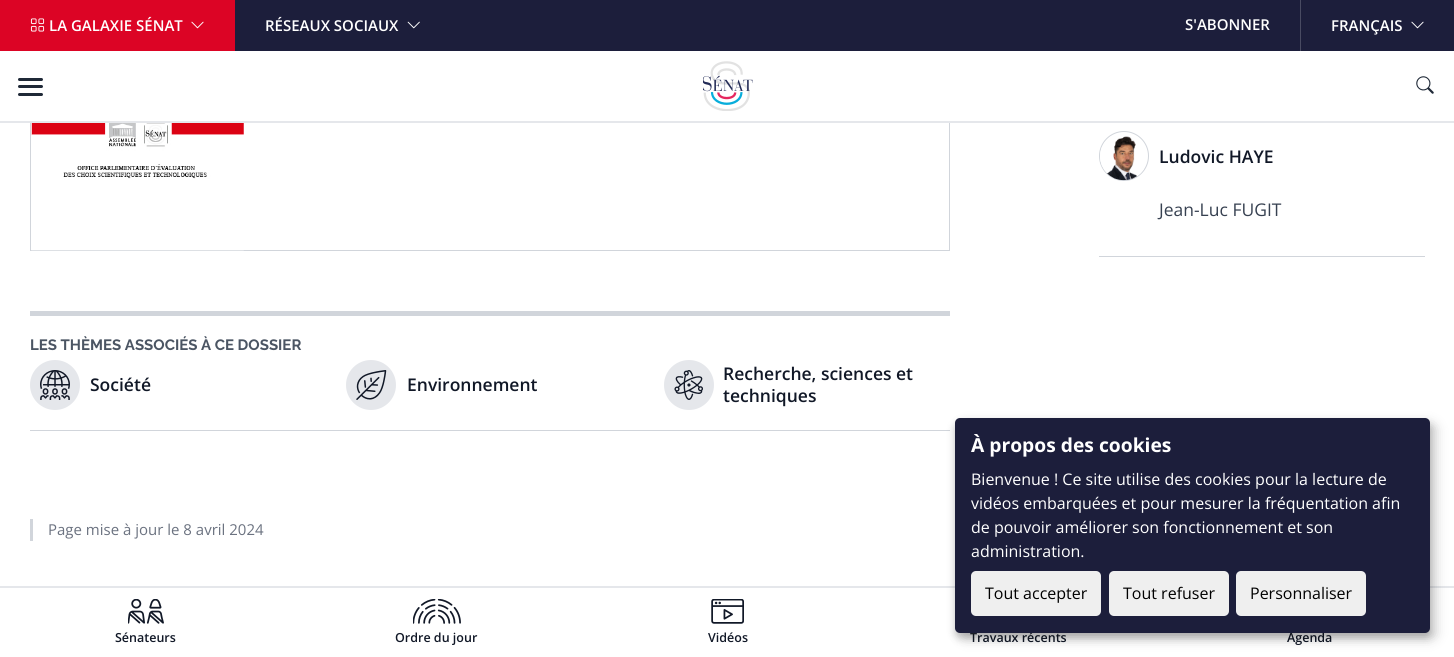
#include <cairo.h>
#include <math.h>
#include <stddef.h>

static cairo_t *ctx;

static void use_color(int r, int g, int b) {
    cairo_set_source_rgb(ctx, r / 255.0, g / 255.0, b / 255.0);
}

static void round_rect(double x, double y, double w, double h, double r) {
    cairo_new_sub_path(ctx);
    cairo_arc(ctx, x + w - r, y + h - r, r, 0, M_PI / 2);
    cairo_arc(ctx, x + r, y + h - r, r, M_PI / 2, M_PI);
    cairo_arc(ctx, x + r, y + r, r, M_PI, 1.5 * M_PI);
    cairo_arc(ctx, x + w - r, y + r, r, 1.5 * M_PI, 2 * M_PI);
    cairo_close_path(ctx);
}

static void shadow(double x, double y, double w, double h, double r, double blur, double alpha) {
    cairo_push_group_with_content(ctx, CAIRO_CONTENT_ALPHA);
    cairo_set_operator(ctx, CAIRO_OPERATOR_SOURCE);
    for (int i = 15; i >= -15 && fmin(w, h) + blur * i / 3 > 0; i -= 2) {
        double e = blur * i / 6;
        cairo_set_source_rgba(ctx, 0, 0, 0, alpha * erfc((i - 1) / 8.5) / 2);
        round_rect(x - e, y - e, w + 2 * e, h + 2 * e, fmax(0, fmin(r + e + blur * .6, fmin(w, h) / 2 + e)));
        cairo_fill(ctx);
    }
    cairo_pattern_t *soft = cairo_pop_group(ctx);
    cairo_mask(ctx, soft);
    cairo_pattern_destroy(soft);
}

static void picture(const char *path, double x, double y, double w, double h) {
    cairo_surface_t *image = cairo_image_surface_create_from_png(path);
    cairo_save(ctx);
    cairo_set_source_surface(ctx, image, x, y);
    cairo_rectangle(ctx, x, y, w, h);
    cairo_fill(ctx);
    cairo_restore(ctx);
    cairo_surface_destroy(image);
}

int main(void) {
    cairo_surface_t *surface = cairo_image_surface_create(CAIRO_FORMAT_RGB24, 1454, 657);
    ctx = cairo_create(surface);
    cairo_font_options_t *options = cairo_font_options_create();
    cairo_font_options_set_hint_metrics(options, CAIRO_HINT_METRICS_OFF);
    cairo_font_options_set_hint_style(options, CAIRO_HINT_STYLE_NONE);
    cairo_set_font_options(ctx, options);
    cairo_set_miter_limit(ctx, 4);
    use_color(255, 255, 255);
    cairo_paint(ctx);
    cairo_rectangle(ctx, 30.5, -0.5, 919, 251);
    use_color(209, 213, 219);
    cairo_set_line_width(ctx, 1);
    cairo_stroke(ctx);
    use_color(28, 30, 59);
    cairo_rectangle(ctx, 235, 0, 1219, 51);
    cairo_fill(ctx);
    use_color(220, 4, 37);
    cairo_rectangle(ctx, 0, 0, 235, 51);
    cairo_fill(ctx);
    picture("img1.png", 30, 18, 15, 14);
    cairo_select_font_face(ctx, "Open Sans SemiBold", CAIRO_FONT_SLANT_NORMAL, CAIRO_FONT_WEIGHT_NORMAL);
    cairo_set_font_size(ctx, 15);
    use_color(255, 255, 255);
    cairo_move_to(ctx, 49, 31);
    cairo_show_text(ctx, "LA GALAXIE SÉNAT");
    picture("img2.png", 191, 21, 13, 8);
    cairo_move_to(ctx, 265, 31);
    cairo_show_text(ctx, "RÉSEAUX SOCIAUX");
    picture("img3.png", 407, 21, 13, 8);
    cairo_move_to(ctx, 1185, 30);
    cairo_show_text(ctx, "S'ABONNER");
    use_color(73, 75, 98);
    cairo_rectangle(ctx, 1300, 0, 1, 51);
    cairo_fill(ctx);
    use_color(255, 255, 255);
    cairo_move_to(ctx, 1331, 31);
    cairo_show_text(ctx, "FRANÇAIS");
    picture("img4.png", 1411, 21, 13, 8);
    use_color(229, 231, 235);
    cairo_rectangle(ctx, 0, 121, 1454, 2);
    cairo_fill(ctx);
    use_color(255, 255, 255);
    cairo_rectangle(ctx, 30, 51, 920, 70);
    cairo_fill(ctx);
    use_color(31, 41, 55);
    round_rect(18, 85, 25, 3, 1.5);
    cairo_fill(ctx);
    round_rect(18, 78, 25, 3, 1.5);
    cairo_fill(ctx);
    round_rect(18, 93, 25, 3, 1.5);
    cairo_fill(ctx);
    picture("img5.png", 703, 61, 50, 50);
    picture("img6.png", 1416, 76, 18, 18);
    use_color(229, 231, 235);
    cairo_rectangle(ctx, 0, 586, 1454, 2);
    cairo_fill(ctx);
    picture("img7.png", 128, 599, 36, 25);
    cairo_set_font_size(ctx, 12.5);
    use_color(17, 24, 39);
    cairo_move_to(ctx, 115, 642);
    cairo_show_text(ctx, "Sénateurs");
    picture("img8.png", 413, 599, 48, 25);
    cairo_move_to(ctx, 395, 642);
    cairo_show_text(ctx, "Ordre du jour");
    picture("img9.png", 711, 599, 33, 25);
    cairo_move_to(ctx, 708, 642);
    cairo_show_text(ctx, "Vidéos");
    cairo_move_to(ctx, 970, 642);
    cairo_show_text(ctx, "Travaux récents");
    cairo_move_to(ctx, 1287, 642);
    cairo_show_text(ctx, "Agenda");
    use_color(209, 213, 219);
    cairo_rectangle(ctx, 1099, 256, 326, 1);
    cairo_fill(ctx);
    cairo_arc(ctx, 1124, 156, 24.5, 0, 2 * M_PI);
    cairo_stroke(ctx);
    picture("img10.png", 1100, 136, 44, 45);
    cairo_set_font_size(ctx, 17.5);
    use_color(17, 24, 39);
    cairo_move_to(ctx, 1159, 163);
    cairo_show_text(ctx, "Ludovic HAYE");
    cairo_select_font_face(ctx, "Open Sans", CAIRO_FONT_SLANT_NORMAL, CAIRO_FONT_WEIGHT_NORMAL);
    use_color(55, 65, 81);
    cairo_move_to(ctx, 1159, 216);
    cairo_show_text(ctx, "Jean-Luc FUGIT");
    picture("img11.png", 31, 123, 213, 128);
    use_color(209, 213, 219);
    cairo_rectangle(ctx, 30, 311, 920, 5);
    cairo_fill(ctx);
    cairo_rectangle(ctx, 30, 430, 920, 1);
    cairo_fill(ctx);
    cairo_select_font_face(ctx, "Raleway", CAIRO_FONT_SLANT_NORMAL, CAIRO_FONT_WEIGHT_BOLD);
    cairo_set_font_size(ctx, 15);
    use_color(75, 85, 99);
    cairo_move_to(ctx, 30, 350);
    cairo_show_text(ctx, "LES THÈMES ASSOCIÉS À CE DOSSIER");
    use_color(229, 231, 235);
    cairo_new_path(ctx);
    cairo_arc(ctx, 55, 385, 25, 0, 2 * M_PI);
    cairo_fill(ctx);
    picture("img12.png", 40, 370, 30, 30);
    cairo_select_font_face(ctx, "Open Sans SemiBold", CAIRO_FONT_SLANT_NORMAL, CAIRO_FONT_WEIGHT_NORMAL);
    cairo_set_font_size(ctx, 17.5);
    use_color(17, 24, 39);
    cairo_move_to(ctx, 90, 391);
    cairo_show_text(ctx, "Société");
    use_color(229, 231, 235);
    cairo_new_path(ctx);
    cairo_arc(ctx, 371, 385, 25, 0, 2 * M_PI);
    cairo_fill(ctx);
    picture("img13.png", 356, 370, 31, 30);
    use_color(17, 24, 39);
    cairo_move_to(ctx, 407, 391);
    cairo_show_text(ctx, "Environnement");
    use_color(229, 231, 235);
    cairo_new_path(ctx);
    cairo_arc(ctx, 689, 385, 25, 0, 2 * M_PI);
    cairo_fill(ctx);
    picture("img14.png", 674, 370, 29, 30);
    use_color(17, 24, 39);
    cairo_move_to(ctx, 723, 380);
    cairo_show_text(ctx, "Recherche, sciences et");
    cairo_move_to(ctx, 723, 402);
    cairo_show_text(ctx, "techniques");
    use_color(209, 213, 219);
    cairo_rectangle(ctx, 30, 519, 3, 22);
    cairo_fill(ctx);
    cairo_select_font_face(ctx, "Open Sans", CAIRO_FONT_SLANT_NORMAL, CAIRO_FONT_WEIGHT_NORMAL);
    cairo_set_font_size(ctx, 15);
    use_color(107, 114, 128);
    cairo_move_to(ctx, 48, 535);
    cairo_show_text(ctx, "Page mise à jour le 8 avril 2024");
    use_color(0, 0, 0);
    shadow(961, 424, 475, 215, 5, 6, 0.19);
    shadow(955, 423, 475, 215, 5, 4, 0.2);
    use_color(28, 30, 59);
    round_rect(955, 418, 475, 215, 5);
    cairo_fill(ctx);
    cairo_select_font_face(ctx, "Open Sans", CAIRO_FONT_SLANT_NORMAL, CAIRO_FONT_WEIGHT_BOLD);
    cairo_set_font_size(ctx, 19.25);
    use_color(255, 255, 255);
    cairo_move_to(ctx, 971, 452);
    cairo_show_text(ctx, "À propos des cookies");
    cairo_select_font_face(ctx, "Open Sans", CAIRO_FONT_SLANT_NORMAL, CAIRO_FONT_WEIGHT_NORMAL);
    cairo_set_font_size(ctx, 16);
    cairo_move_to(ctx, 971, 485);
    cairo_show_text(ctx, "Bienvenue ! Ce site utilise des cookies pour la lecture de");
    cairo_move_to(ctx, 971, 509);
    cairo_show_text(ctx, "vidéos embarquées et pour mesurer la fréquentation afin");
    cairo_move_to(ctx, 971, 533);
    cairo_show_text(ctx, "de pouvoir améliorer son fonctionnement et son");
    cairo_move_to(ctx, 971, 557);
    cairo_show_text(ctx, "administration.");
    use_color(239, 239, 239);
    round_rect(971, 571, 130, 45, 5);
    cairo_fill(ctx);
    use_color(0, 0, 0);
    cairo_move_to(ctx, 985, 599);
    cairo_show_text(ctx, "Tout accepter");
    use_color(239, 239, 239);
    round_rect(1109, 571, 120, 45, 5);
    cairo_fill(ctx);
    use_color(0, 0, 0);
    cairo_move_to(ctx, 1123, 599);
    cairo_show_text(ctx, "Tout refuser");
    use_color(239, 239, 239);
    round_rect(1236, 571, 130, 45, 5);
    cairo_fill(ctx);
    use_color(0, 0, 0);
    cairo_move_to(ctx, 1250, 599);
    cairo_show_text(ctx, "Personnaliser");
    cairo_surface_write_to_png(surface, "result.png");
    cairo_font_options_destroy(options);
    cairo_destroy(ctx);
    cairo_surface_destroy(surface);
    return 0;
}
